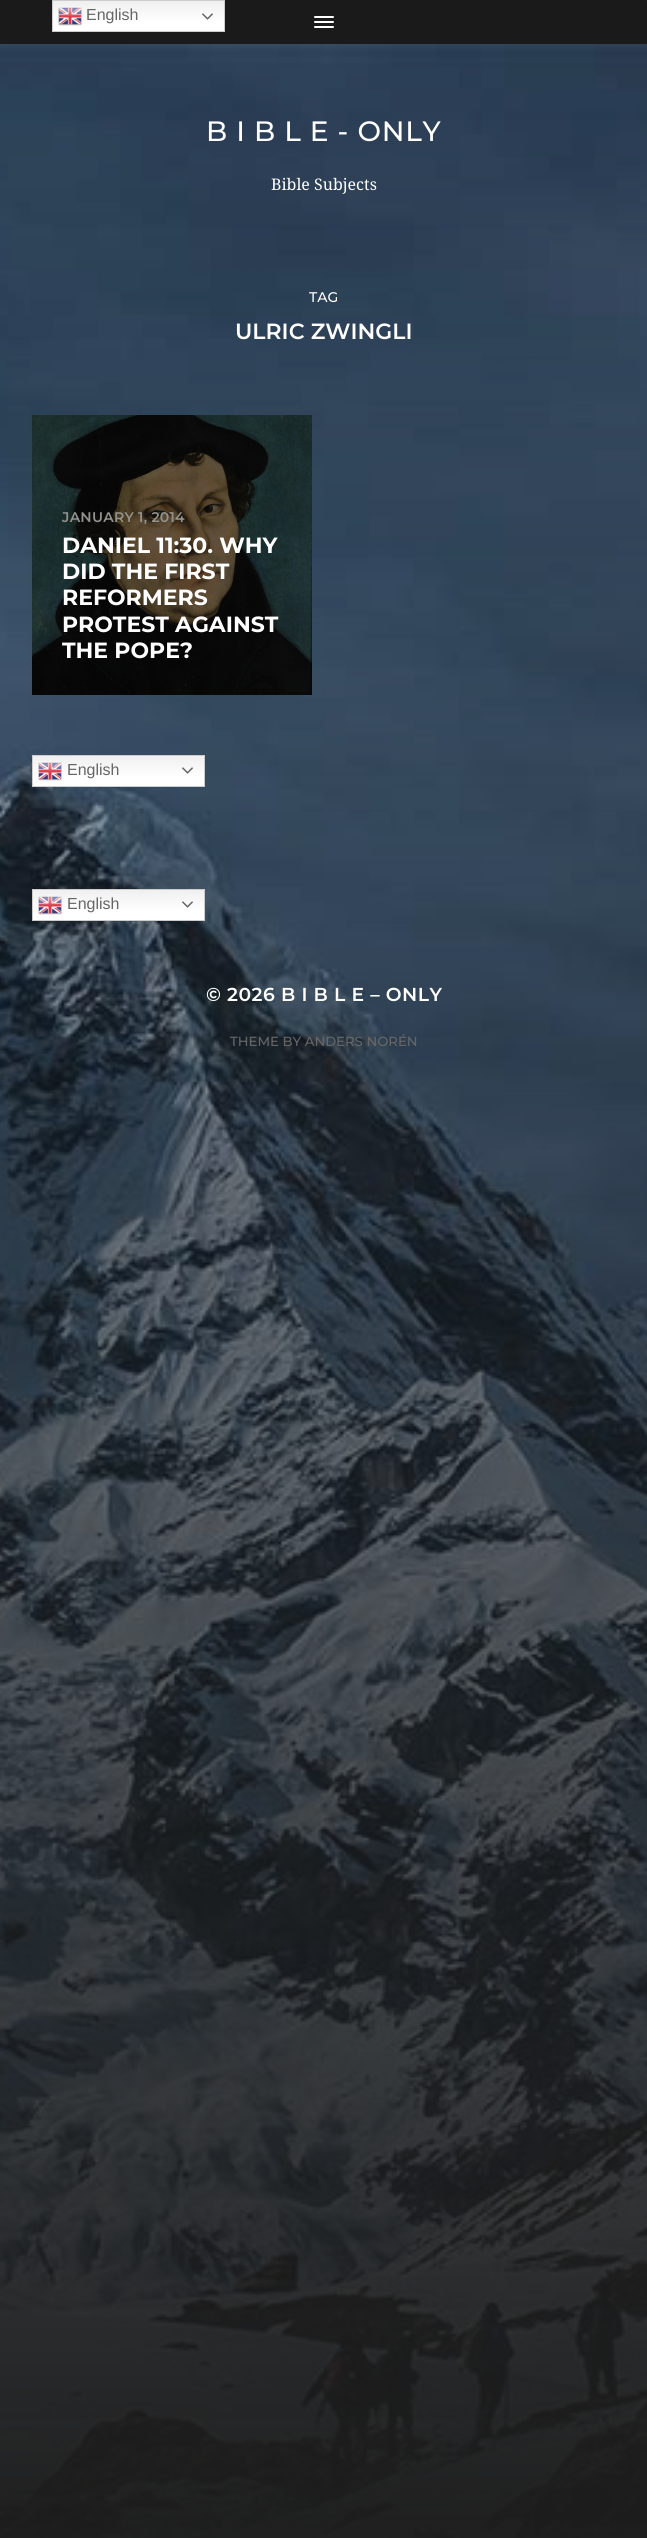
#include <cairo.h>
#include <math.h>
#include <stddef.h>

static cairo_t *ctx;

static void use_color(int r, int g, int b) {
    cairo_set_source_rgb(ctx, r / 255.0, g / 255.0, b / 255.0);
}

static void spaced_text(double x, double y, const char *s, double letter, double word) {
    cairo_move_to(ctx, x, y);
    while (*s) {
        char ch[5] = {0};
        int n = 0;
        do ch[n++] = *s++; while ((*s & 0xC0) == 0x80);
        cairo_show_text(ctx, ch);
        cairo_rel_move_to(ctx, letter + word * (*ch == ' '), 0);
    }
}

static void round_rect(double x, double y, double w, double h, double r) {
    cairo_new_sub_path(ctx);
    cairo_arc(ctx, x + w - r, y + h - r, r, 0, M_PI / 2);
    cairo_arc(ctx, x + r, y + h - r, r, M_PI / 2, M_PI);
    cairo_arc(ctx, x + r, y + r, r, M_PI, 1.5 * M_PI);
    cairo_arc(ctx, x + w - r, y + r, r, 1.5 * M_PI, 2 * M_PI);
    cairo_close_path(ctx);
}

static void picture(const char *path, double x, double y, double w, double h) {
    cairo_surface_t *image = cairo_image_surface_create_from_png(path);
    cairo_save(ctx);
    cairo_set_source_surface(ctx, image, x, y);
    cairo_rectangle(ctx, x, y, w, h);
    cairo_fill(ctx);
    cairo_restore(ctx);
    cairo_surface_destroy(image);
}

int main(void) {
    cairo_surface_t *surface = cairo_image_surface_create(CAIRO_FORMAT_RGB24, 647, 2538);
    ctx = cairo_create(surface);
    cairo_font_options_t *options = cairo_font_options_create();
    cairo_font_options_set_hint_metrics(options, CAIRO_HINT_METRICS_OFF);
    cairo_font_options_set_hint_style(options, CAIRO_HINT_STYLE_NONE);
    cairo_set_font_options(ctx, options);
    cairo_set_miter_limit(ctx, 4);
    cairo_pattern_t *gradient;
    use_color(29, 29, 29);
    cairo_paint(ctx);
    use_color(26, 26, 26);
    round_rect(0, 0, 647, 44, 3);
    cairo_fill(ctx);
    use_color(255, 255, 255);
    round_rect(314, 16, 20, 2, 1);
    cairo_fill(ctx);
    round_rect(314, 21, 20, 2, 1);
    cairo_fill(ctx);
    round_rect(314, 26, 20, 2, 1);
    cairo_fill(ctx);
    gradient = cairo_pattern_create_linear(139, 0, 139, 32);
    cairo_pattern_add_color_stop_rgba(gradient, 0, 0.937, 0.937, 0.937, 1);
    cairo_pattern_add_color_stop_rgba(gradient, 0.7, 1, 1, 1, 1);
    cairo_set_source(ctx, gradient);
    cairo_pattern_destroy(gradient);
    cairo_rectangle(ctx, 53, 1, 171, 30);
    cairo_fill(ctx);
    cairo_rectangle(ctx, 52.5, 0.5, 172, 31);
    use_color(204, 204, 204);
    cairo_set_line_width(ctx, 1);
    cairo_stroke(ctx);
    picture("img1.png", 58, 7, 24, 19);
    cairo_select_font_face(ctx, "Liberation Sans", CAIRO_FONT_SLANT_NORMAL, CAIRO_FONT_WEIGHT_NORMAL);
    cairo_set_font_size(ctx, 16);
    use_color(102, 102, 102);
    cairo_move_to(ctx, 86, 20);
    cairo_show_text(ctx, "English");
    picture("img2.png", 202, 13, 11, 7);
    picture("img3.png", 0, 44, 647, 2494);
    cairo_select_font_face(ctx, "Montserrat Thin", CAIRO_FONT_SLANT_NORMAL, CAIRO_FONT_WEIGHT_NORMAL);
    cairo_set_font_size(ctx, 28);
    use_color(255, 255, 255);
    spaced_text(206, 141, "B I B L E - ONLY", 0.75, 0);
    cairo_select_font_face(ctx, "Droid Serif", CAIRO_FONT_SLANT_NORMAL, CAIRO_FONT_WEIGHT_NORMAL);
    cairo_set_font_size(ctx, 16);
    cairo_move_to(ctx, 271, 190);
    cairo_show_text(ctx, "Bible Subjects");
    cairo_select_font_face(ctx, "Montserrat Thin", CAIRO_FONT_SLANT_NORMAL, CAIRO_FONT_WEIGHT_NORMAL);
    cairo_set_font_size(ctx, 14);
    cairo_move_to(ctx, 309, 302);
    cairo_show_text(ctx, "TAG");
    cairo_select_font_face(ctx, "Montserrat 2 Thin", CAIRO_FONT_SLANT_NORMAL, CAIRO_FONT_WEIGHT_NORMAL);
    cairo_set_font_size(ctx, 22);
    cairo_move_to(ctx, 235, 339);
    cairo_show_text(ctx, "ULRIC ZWINGLI");
    picture("img4.png", 32, 415, 280, 280);
    cairo_set_font_size(ctx, 14);
    use_color(148, 146, 140);
    spaced_text(62, 522, "JANUARY 1, 2014", 0.25, 0);
    cairo_select_font_face(ctx, "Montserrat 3 Thin", CAIRO_FONT_SLANT_NORMAL, CAIRO_FONT_WEIGHT_NORMAL);
    cairo_set_font_size(ctx, 22);
    use_color(255, 255, 255);
    cairo_move_to(ctx, 62, 553);
    cairo_show_text(ctx, "DANIEL 11:30. WHY");
    cairo_move_to(ctx, 62, 579);
    cairo_show_text(ctx, "DID THE FIRST");
    cairo_move_to(ctx, 62, 605);
    cairo_show_text(ctx, "REFORMERS");
    cairo_move_to(ctx, 62, 632);
    cairo_show_text(ctx, "PROTEST AGAINST");
    cairo_move_to(ctx, 62, 658);
    cairo_show_text(ctx, "THE POPE?");
    gradient = cairo_pattern_create_linear(119, 755, 119, 787);
    cairo_pattern_add_color_stop_rgba(gradient, 0, 0.937, 0.937, 0.937, 1);
    cairo_pattern_add_color_stop_rgba(gradient, 0.7, 1, 1, 1, 1);
    cairo_set_source(ctx, gradient);
    cairo_pattern_destroy(gradient);
    cairo_rectangle(ctx, 33, 756, 171, 30);
    cairo_fill(ctx);
    cairo_rectangle(ctx, 32.5, 755.5, 172, 31);
    use_color(204, 204, 204);
    cairo_stroke(ctx);
    picture("img1.png", 38, 762, 24, 19);
    cairo_select_font_face(ctx, "Liberation Sans", CAIRO_FONT_SLANT_NORMAL, CAIRO_FONT_WEIGHT_NORMAL);
    cairo_set_font_size(ctx, 16);
    use_color(102, 102, 102);
    cairo_move_to(ctx, 67, 775);
    cairo_show_text(ctx, "English");
    picture("img5.png", 182, 767, 11, 7);
    gradient = cairo_pattern_create_linear(119, 889, 119, 921);
    cairo_pattern_add_color_stop_rgba(gradient, 0, 0.937, 0.937, 0.937, 1);
    cairo_pattern_add_color_stop_rgba(gradient, 0.7, 1, 1, 1, 1);
    cairo_set_source(ctx, gradient);
    cairo_pattern_destroy(gradient);
    cairo_rectangle(ctx, 33, 890, 171, 30);
    cairo_fill(ctx);
    cairo_rectangle(ctx, 32.5, 889.5, 172, 31);
    use_color(204, 204, 204);
    cairo_stroke(ctx);
    picture("img1.png", 38, 896, 24, 19);
    use_color(102, 102, 102);
    cairo_move_to(ctx, 67, 909);
    cairo_show_text(ctx, "English");
    picture("img5.png", 182, 901, 11, 7);
    cairo_select_font_face(ctx, "Montserrat 2 Thin", CAIRO_FONT_SLANT_NORMAL, CAIRO_FONT_WEIGHT_NORMAL);
    cairo_set_font_size(ctx, 18.75);
    use_color(255, 255, 255);
    spaced_text(206, 1001, "© 2026 B I B L E – ONLY", 0.5, 0);
    cairo_select_font_face(ctx, "Montserrat Thin", CAIRO_FONT_SLANT_NORMAL, CAIRO_FONT_WEIGHT_NORMAL);
    cairo_set_font_size(ctx, 13.25);
    use_color(102, 102, 102);
    cairo_move_to(ctx, 230, 1046);
    cairo_show_text(ctx, "THEME BY ANDERS NORÉN");
    cairo_surface_write_to_png(surface, "result.png");
    cairo_font_options_destroy(options);
    cairo_destroy(ctx);
    cairo_surface_destroy(surface);
    return 0;
}
